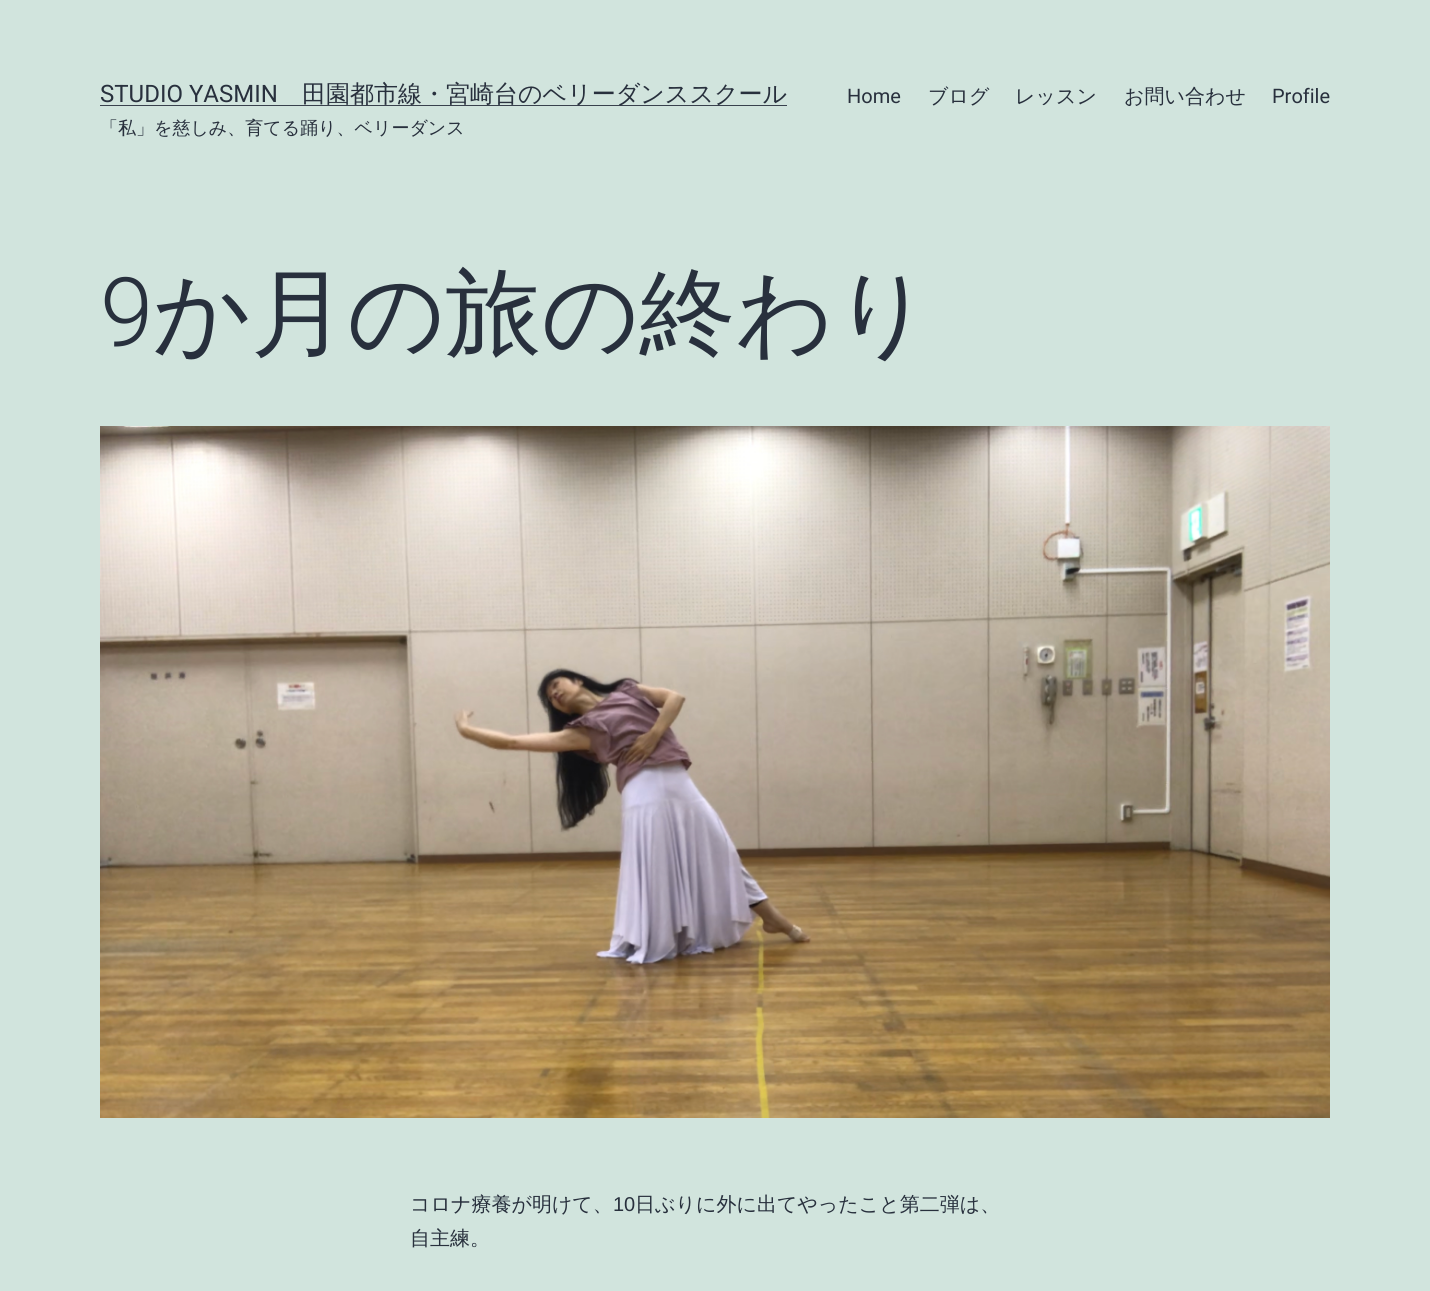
#include <cairo.h>
#include <math.h>
#include <stddef.h>

static cairo_t *ctx;

static void use_color(int r, int g, int b) {
    cairo_set_source_rgb(ctx, r / 255.0, g / 255.0, b / 255.0);
}

static void picture(const char *path, double x, double y, double w, double h) {
    cairo_surface_t *image = cairo_image_surface_create_from_png(path);
    cairo_save(ctx);
    cairo_set_source_surface(ctx, image, x, y);
    cairo_rectangle(ctx, x, y, w, h);
    cairo_fill(ctx);
    cairo_restore(ctx);
    cairo_surface_destroy(image);
}

int main(void) {
    cairo_surface_t *surface = cairo_image_surface_create(CAIRO_FORMAT_RGB24, 1430, 1291);
    ctx = cairo_create(surface);
    cairo_font_options_t *options = cairo_font_options_create();
    cairo_font_options_set_hint_metrics(options, CAIRO_HINT_METRICS_OFF);
    cairo_font_options_set_hint_style(options, CAIRO_HINT_STYLE_NONE);
    cairo_set_font_options(ctx, options);
    cairo_set_miter_limit(ctx, 4);
    use_color(209, 228, 221);
    cairo_paint(ctx);
    cairo_select_font_face(ctx, "Roboto", CAIRO_FONT_SLANT_NORMAL, CAIRO_FONT_WEIGHT_NORMAL);
    cairo_set_font_size(ctx, 24);
    use_color(40, 48, 61);
    cairo_move_to(ctx, 100, 102);
    cairo_show_text(ctx, "STUDIO YASMIN");
    use_color(57, 65, 77);
    cairo_rectangle(ctx, 100, 105, 687, 1);
    cairo_fill(ctx);
    cairo_select_font_face(ctx, "WenQuanYi Zen Hei Medium", CAIRO_FONT_SLANT_NORMAL, CAIRO_FONT_WEIGHT_NORMAL);
    use_color(40, 48, 61);
    cairo_move_to(ctx, 302, 102);
    cairo_show_text(ctx, "田園都市線・宮崎台のベリーダンススクール");
    cairo_set_font_size(ctx, 18);
    cairo_move_to(ctx, 100, 134);
    cairo_show_text(ctx, "「私」を慈しみ、育てる踊り、ベリーダンス");
    cairo_select_font_face(ctx, "Roboto", CAIRO_FONT_SLANT_NORMAL, CAIRO_FONT_WEIGHT_NORMAL);
    cairo_set_font_size(ctx, 20);
    cairo_move_to(ctx, 847, 103);
    cairo_show_text(ctx, "Home");
    cairo_select_font_face(ctx, "WenQuanYi Zen Hei Medium", CAIRO_FONT_SLANT_NORMAL, CAIRO_FONT_WEIGHT_NORMAL);
    cairo_move_to(ctx, 928, 103);
    cairo_show_text(ctx, "ブログ");
    cairo_move_to(ctx, 1015, 103);
    cairo_show_text(ctx, "レッスン");
    cairo_move_to(ctx, 1124, 103);
    cairo_show_text(ctx, "お問い合わせ");
    cairo_select_font_face(ctx, "Roboto", CAIRO_FONT_SLANT_NORMAL, CAIRO_FONT_WEIGHT_NORMAL);
    cairo_move_to(ctx, 1272, 103);
    cairo_show_text(ctx, "Profile");
    cairo_select_font_face(ctx, "Roboto Light", CAIRO_FONT_SLANT_NORMAL, CAIRO_FONT_WEIGHT_NORMAL);
    cairo_set_font_size(ctx, 96);
    cairo_move_to(ctx, 100, 346);
    cairo_show_text(ctx, "9");
    cairo_select_font_face(ctx, "WenQuanYi Zen Hei Medium", CAIRO_FONT_SLANT_NORMAL, CAIRO_FONT_WEIGHT_NORMAL);
    cairo_move_to(ctx, 153, 346);
    cairo_show_text(ctx, "か月の旅の終わり");
    picture("img1.png", 100, 426, 1230, 692);
    cairo_set_font_size(ctx, 20);
    cairo_move_to(ctx, 410, 1211);
    cairo_show_text(ctx, "コロナ療養が明けて、");
    cairo_select_font_face(ctx, "Liberation Sans", CAIRO_FONT_SLANT_NORMAL, CAIRO_FONT_WEIGHT_NORMAL);
    cairo_move_to(ctx, 613, 1211);
    cairo_show_text(ctx, "10");
    cairo_select_font_face(ctx, "WenQuanYi Zen Hei Medium", CAIRO_FONT_SLANT_NORMAL, CAIRO_FONT_WEIGHT_NORMAL);
    cairo_move_to(ctx, 635, 1211);
    cairo_show_text(ctx, "日ぶりに外に出てやったこと第二弾は、");
    cairo_move_to(ctx, 410, 1245);
    cairo_show_text(ctx, "自主練。");
    cairo_surface_write_to_png(surface, "result.png");
    cairo_font_options_destroy(options);
    cairo_destroy(ctx);
    cairo_surface_destroy(surface);
    return 0;
}
